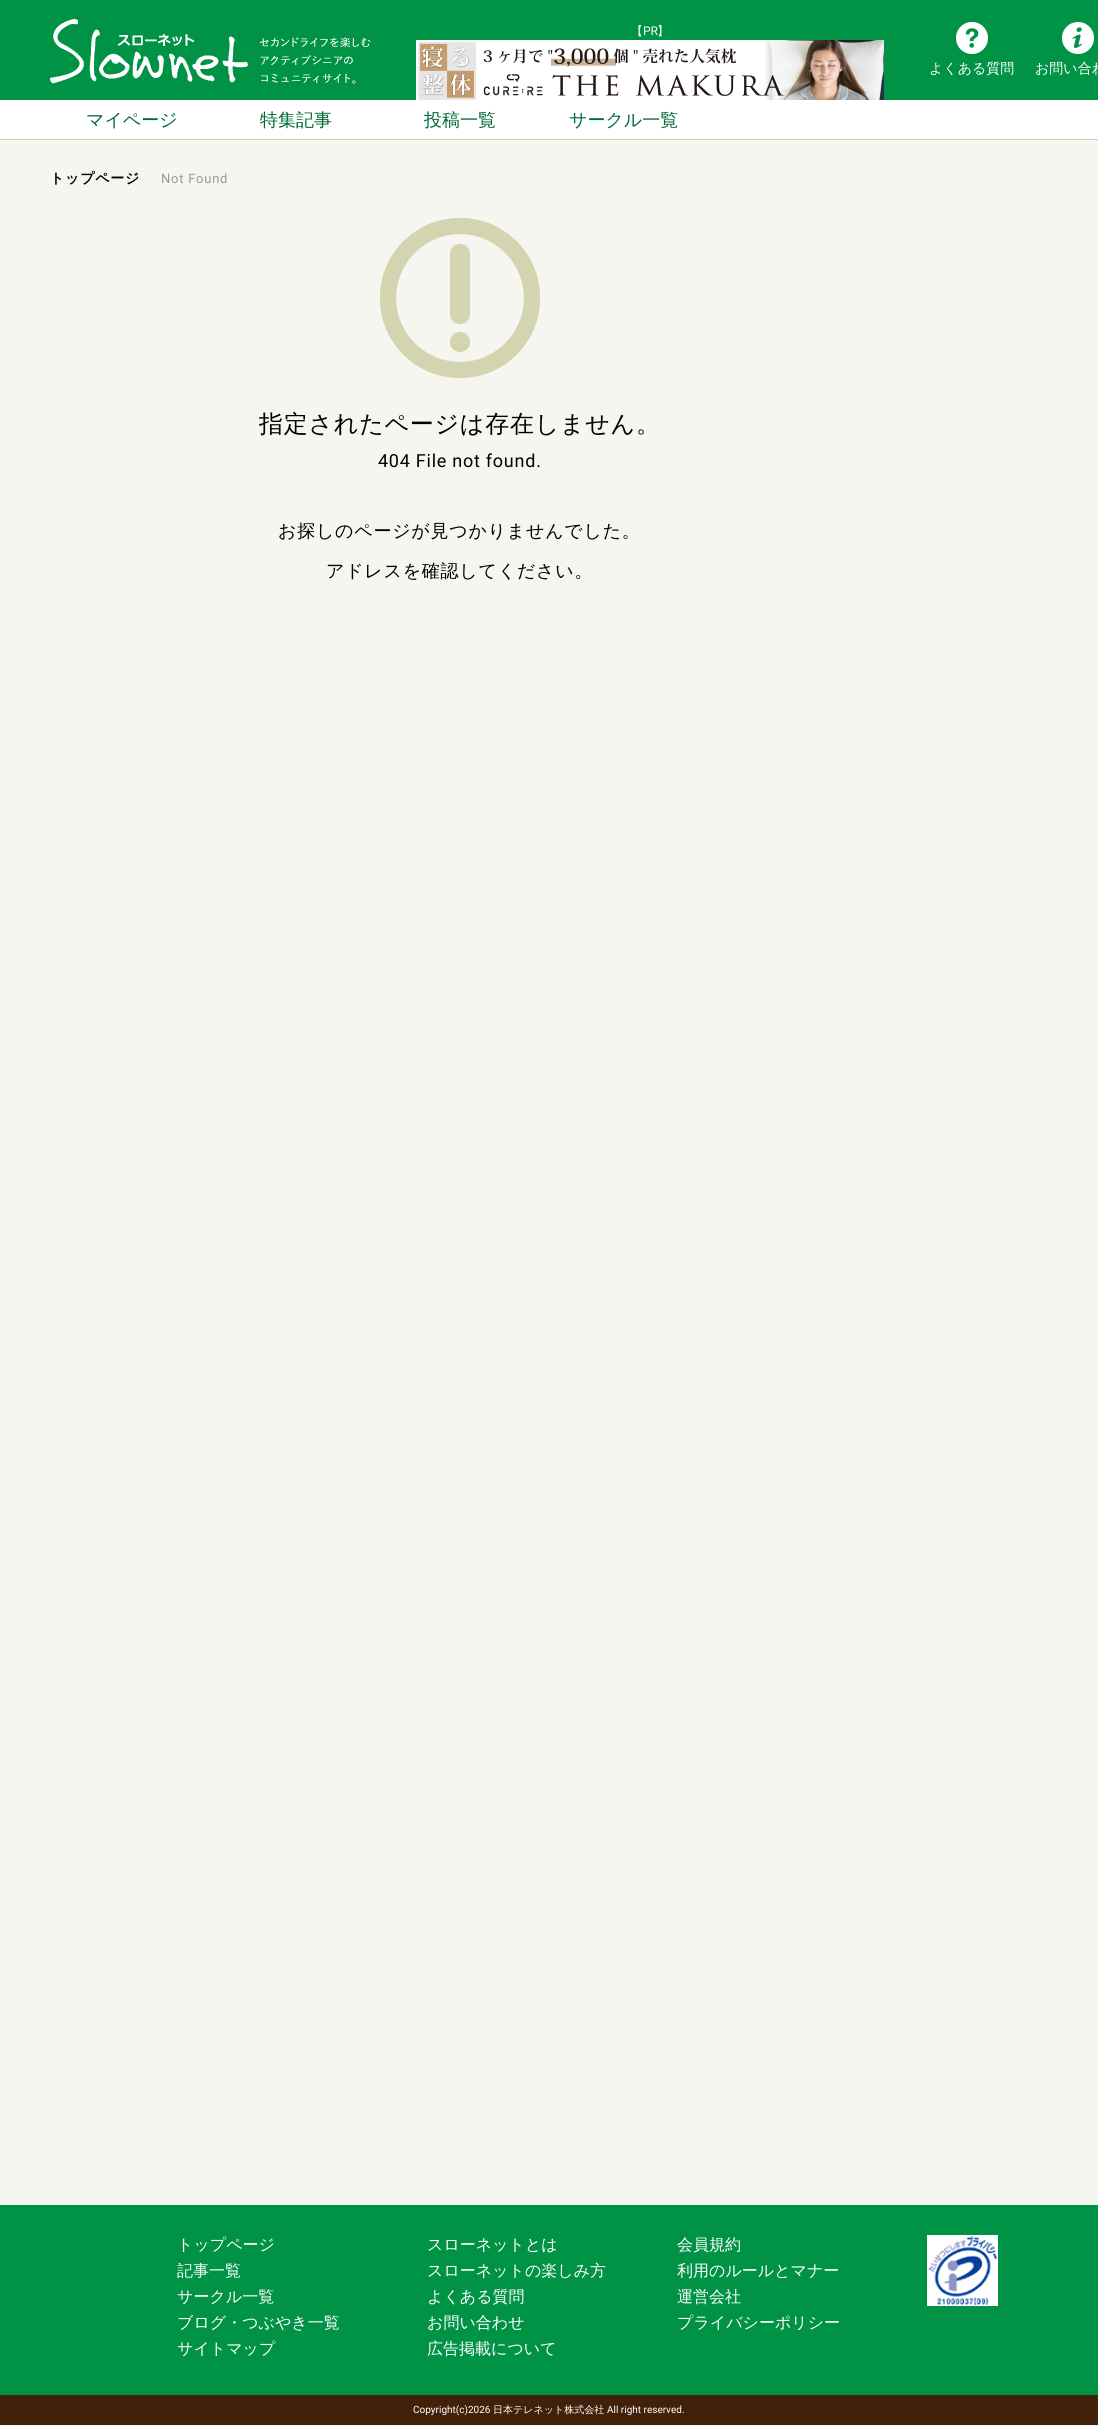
#include <cairo.h>
#include <math.h>
#include <stddef.h>

static cairo_t *ctx;

static void use_color(int r, int g, int b) {
    cairo_set_source_rgb(ctx, r / 255.0, g / 255.0, b / 255.0);
}

static void spaced_text(double x, double y, const char *s, double letter, double word) {
    cairo_move_to(ctx, x, y);
    while (*s) {
        char ch[5] = {0};
        int n = 0;
        do ch[n++] = *s++; while ((*s & 0xC0) == 0x80);
        cairo_show_text(ctx, ch);
        cairo_rel_move_to(ctx, letter + word * (*ch == ' '), 0);
    }
}

static void picture(const char *path, double x, double y, double w, double h) {
    cairo_surface_t *image = cairo_image_surface_create_from_png(path);
    cairo_save(ctx);
    cairo_set_source_surface(ctx, image, x, y);
    cairo_rectangle(ctx, x, y, w, h);
    cairo_fill(ctx);
    cairo_restore(ctx);
    cairo_surface_destroy(image);
}

int main(void) {
    cairo_surface_t *surface = cairo_image_surface_create(CAIRO_FORMAT_RGB24, 1098, 2426);
    ctx = cairo_create(surface);
    cairo_font_options_t *options = cairo_font_options_create();
    cairo_font_options_set_hint_metrics(options, CAIRO_HINT_METRICS_OFF);
    cairo_font_options_set_hint_style(options, CAIRO_HINT_STYLE_NONE);
    cairo_set_font_options(ctx, options);
    cairo_set_miter_limit(ctx, 4);
    use_color(246, 246, 240);
    cairo_paint(ctx);
    use_color(0, 146, 69);
    cairo_rectangle(ctx, 0, 0, 1098, 100);
    cairo_fill(ctx);
    picture("img1.png", 50, 19, 321, 65);
    cairo_select_font_face(ctx, "WenQuanYi Zen Hei Medium", CAIRO_FONT_SLANT_NORMAL, CAIRO_FONT_WEIGHT_NORMAL);
    cairo_set_font_size(ctx, 12);
    use_color(255, 255, 255);
    cairo_move_to(ctx, 631, 35);
    cairo_show_text(ctx, "【");
    cairo_select_font_face(ctx, "Roboto", CAIRO_FONT_SLANT_NORMAL, CAIRO_FONT_WEIGHT_NORMAL);
    cairo_move_to(ctx, 643, 35);
    cairo_show_text(ctx, "PR");
    cairo_select_font_face(ctx, "WenQuanYi Zen Hei Medium", CAIRO_FONT_SLANT_NORMAL, CAIRO_FONT_WEIGHT_NORMAL);
    cairo_move_to(ctx, 657, 35);
    cairo_show_text(ctx, "】");
    picture("img2.png", 416, 40, 468, 60);
    picture("img3.png", 956, 22, 32, 32);
    cairo_set_font_size(ctx, 14);
    cairo_move_to(ctx, 929, 73);
    cairo_show_text(ctx, "よくある質問");
    picture("img4.png", 1062, 22, 32, 32);
    cairo_move_to(ctx, 1035, 73);
    cairo_show_text(ctx, "お問い合わ");
    cairo_rectangle(ctx, 0, 100, 1098, 39);
    cairo_fill(ctx);
    use_color(189, 212, 177);
    cairo_rectangle(ctx, 0, 139, 1098, 1);
    cairo_fill(ctx);
    cairo_set_font_size(ctx, 18);
    use_color(0, 104, 55);
    cairo_move_to(ctx, 86, 126);
    cairo_show_text(ctx, "マイページ");
    cairo_move_to(ctx, 260, 126);
    cairo_show_text(ctx, "特集記事");
    cairo_move_to(ctx, 424, 126);
    cairo_show_text(ctx, "投稿一覧");
    cairo_move_to(ctx, 569, 126);
    cairo_show_text(ctx, "サークル一覧");
    cairo_select_font_face(ctx, "WenQuanYi Zen Hei", CAIRO_FONT_SLANT_NORMAL, CAIRO_FONT_WEIGHT_BOLD);
    cairo_set_font_size(ctx, 14);
    use_color(0, 0, 0);
    spaced_text(50, 183, "トップページ", 0.75, 0);
    cairo_select_font_face(ctx, "Roboto", CAIRO_FONT_SLANT_NORMAL, CAIRO_FONT_WEIGHT_NORMAL);
    cairo_set_font_size(ctx, 13);
    use_color(153, 153, 153);
    spaced_text(161, 183, "Not Found", 0.75, 0);
    picture("img5.png", 380, 218, 160, 160);
    cairo_select_font_face(ctx, "WenQuanYi Zen Hei Medium", CAIRO_FONT_SLANT_NORMAL, CAIRO_FONT_WEIGHT_NORMAL);
    cairo_set_font_size(ctx, 24);
    use_color(0, 0, 0);
    spaced_text(259, 432, "指定されたページは存在しません。", 0.75, 0);
    cairo_select_font_face(ctx, "Roboto", CAIRO_FONT_SLANT_NORMAL, CAIRO_FONT_WEIGHT_NORMAL);
    cairo_set_font_size(ctx, 18);
    spaced_text(378, 467, "404 File not found.", 0.75, 0);
    cairo_select_font_face(ctx, "WenQuanYi Zen Hei Medium", CAIRO_FONT_SLANT_NORMAL, CAIRO_FONT_WEIGHT_NORMAL);
    spaced_text(278, 537, "お探しのページが見つかりませんでした。", 0.75, 0);
    spaced_text(326, 577, "アドレスを確認してください。", 0.75, 0);
    use_color(0, 146, 69);
    cairo_rectangle(ctx, 0, 2205, 1098, 190);
    cairo_fill(ctx);
    cairo_set_font_size(ctx, 16);
    use_color(255, 255, 255);
    cairo_move_to(ctx, 177, 2250);
    cairo_show_text(ctx, "トップページ");
    cairo_move_to(ctx, 177, 2276);
    cairo_show_text(ctx, "記事一覧");
    cairo_move_to(ctx, 177, 2302);
    cairo_show_text(ctx, "サークル一覧");
    cairo_move_to(ctx, 177, 2328);
    cairo_show_text(ctx, "ブログ・つぶやき一覧");
    cairo_move_to(ctx, 177, 2354);
    cairo_show_text(ctx, "サイトマップ");
    cairo_move_to(ctx, 427, 2250);
    cairo_show_text(ctx, "スローネットとは");
    cairo_move_to(ctx, 427, 2276);
    cairo_show_text(ctx, "スローネットの楽しみ方");
    cairo_move_to(ctx, 427, 2302);
    cairo_show_text(ctx, "よくある質問");
    cairo_move_to(ctx, 427, 2328);
    cairo_show_text(ctx, "お問い合わせ");
    cairo_move_to(ctx, 427, 2354);
    cairo_show_text(ctx, "広告掲載について");
    cairo_move_to(ctx, 677, 2250);
    cairo_show_text(ctx, "会員規約");
    cairo_move_to(ctx, 677, 2276);
    cairo_show_text(ctx, "利用のルールとマナー");
    cairo_move_to(ctx, 677, 2302);
    cairo_show_text(ctx, "運営会社");
    cairo_move_to(ctx, 677, 2328);
    cairo_show_text(ctx, "プライバシーポリシー");
    cairo_rectangle(ctx, 927, 2235, 71, 71);
    cairo_fill(ctx);
    picture("img6.png", 928, 2236, 70, 70);
    use_color(66, 33, 11);
    cairo_rectangle(ctx, 0, 2395, 1098, 30);
    cairo_fill(ctx);
    cairo_select_font_face(ctx, "Roboto", CAIRO_FONT_SLANT_NORMAL, CAIRO_FONT_WEIGHT_NORMAL);
    cairo_set_font_size(ctx, 10);
    use_color(255, 255, 255);
    cairo_move_to(ctx, 413, 2413);
    cairo_show_text(ctx, "Copyright(c)2026");
    cairo_select_font_face(ctx, "WenQuanYi Zen Hei Medium", CAIRO_FONT_SLANT_NORMAL, CAIRO_FONT_WEIGHT_NORMAL);
    cairo_move_to(ctx, 493, 2413);
    cairo_show_text(ctx, "日本テレネット株式会社");
    cairo_select_font_face(ctx, "Roboto", CAIRO_FONT_SLANT_NORMAL, CAIRO_FONT_WEIGHT_NORMAL);
    cairo_move_to(ctx, 607, 2413);
    cairo_show_text(ctx, "All right reserved.");
    cairo_surface_write_to_png(surface, "result.png");
    cairo_font_options_destroy(options);
    cairo_destroy(ctx);
    cairo_surface_destroy(surface);
    return 0;
}
